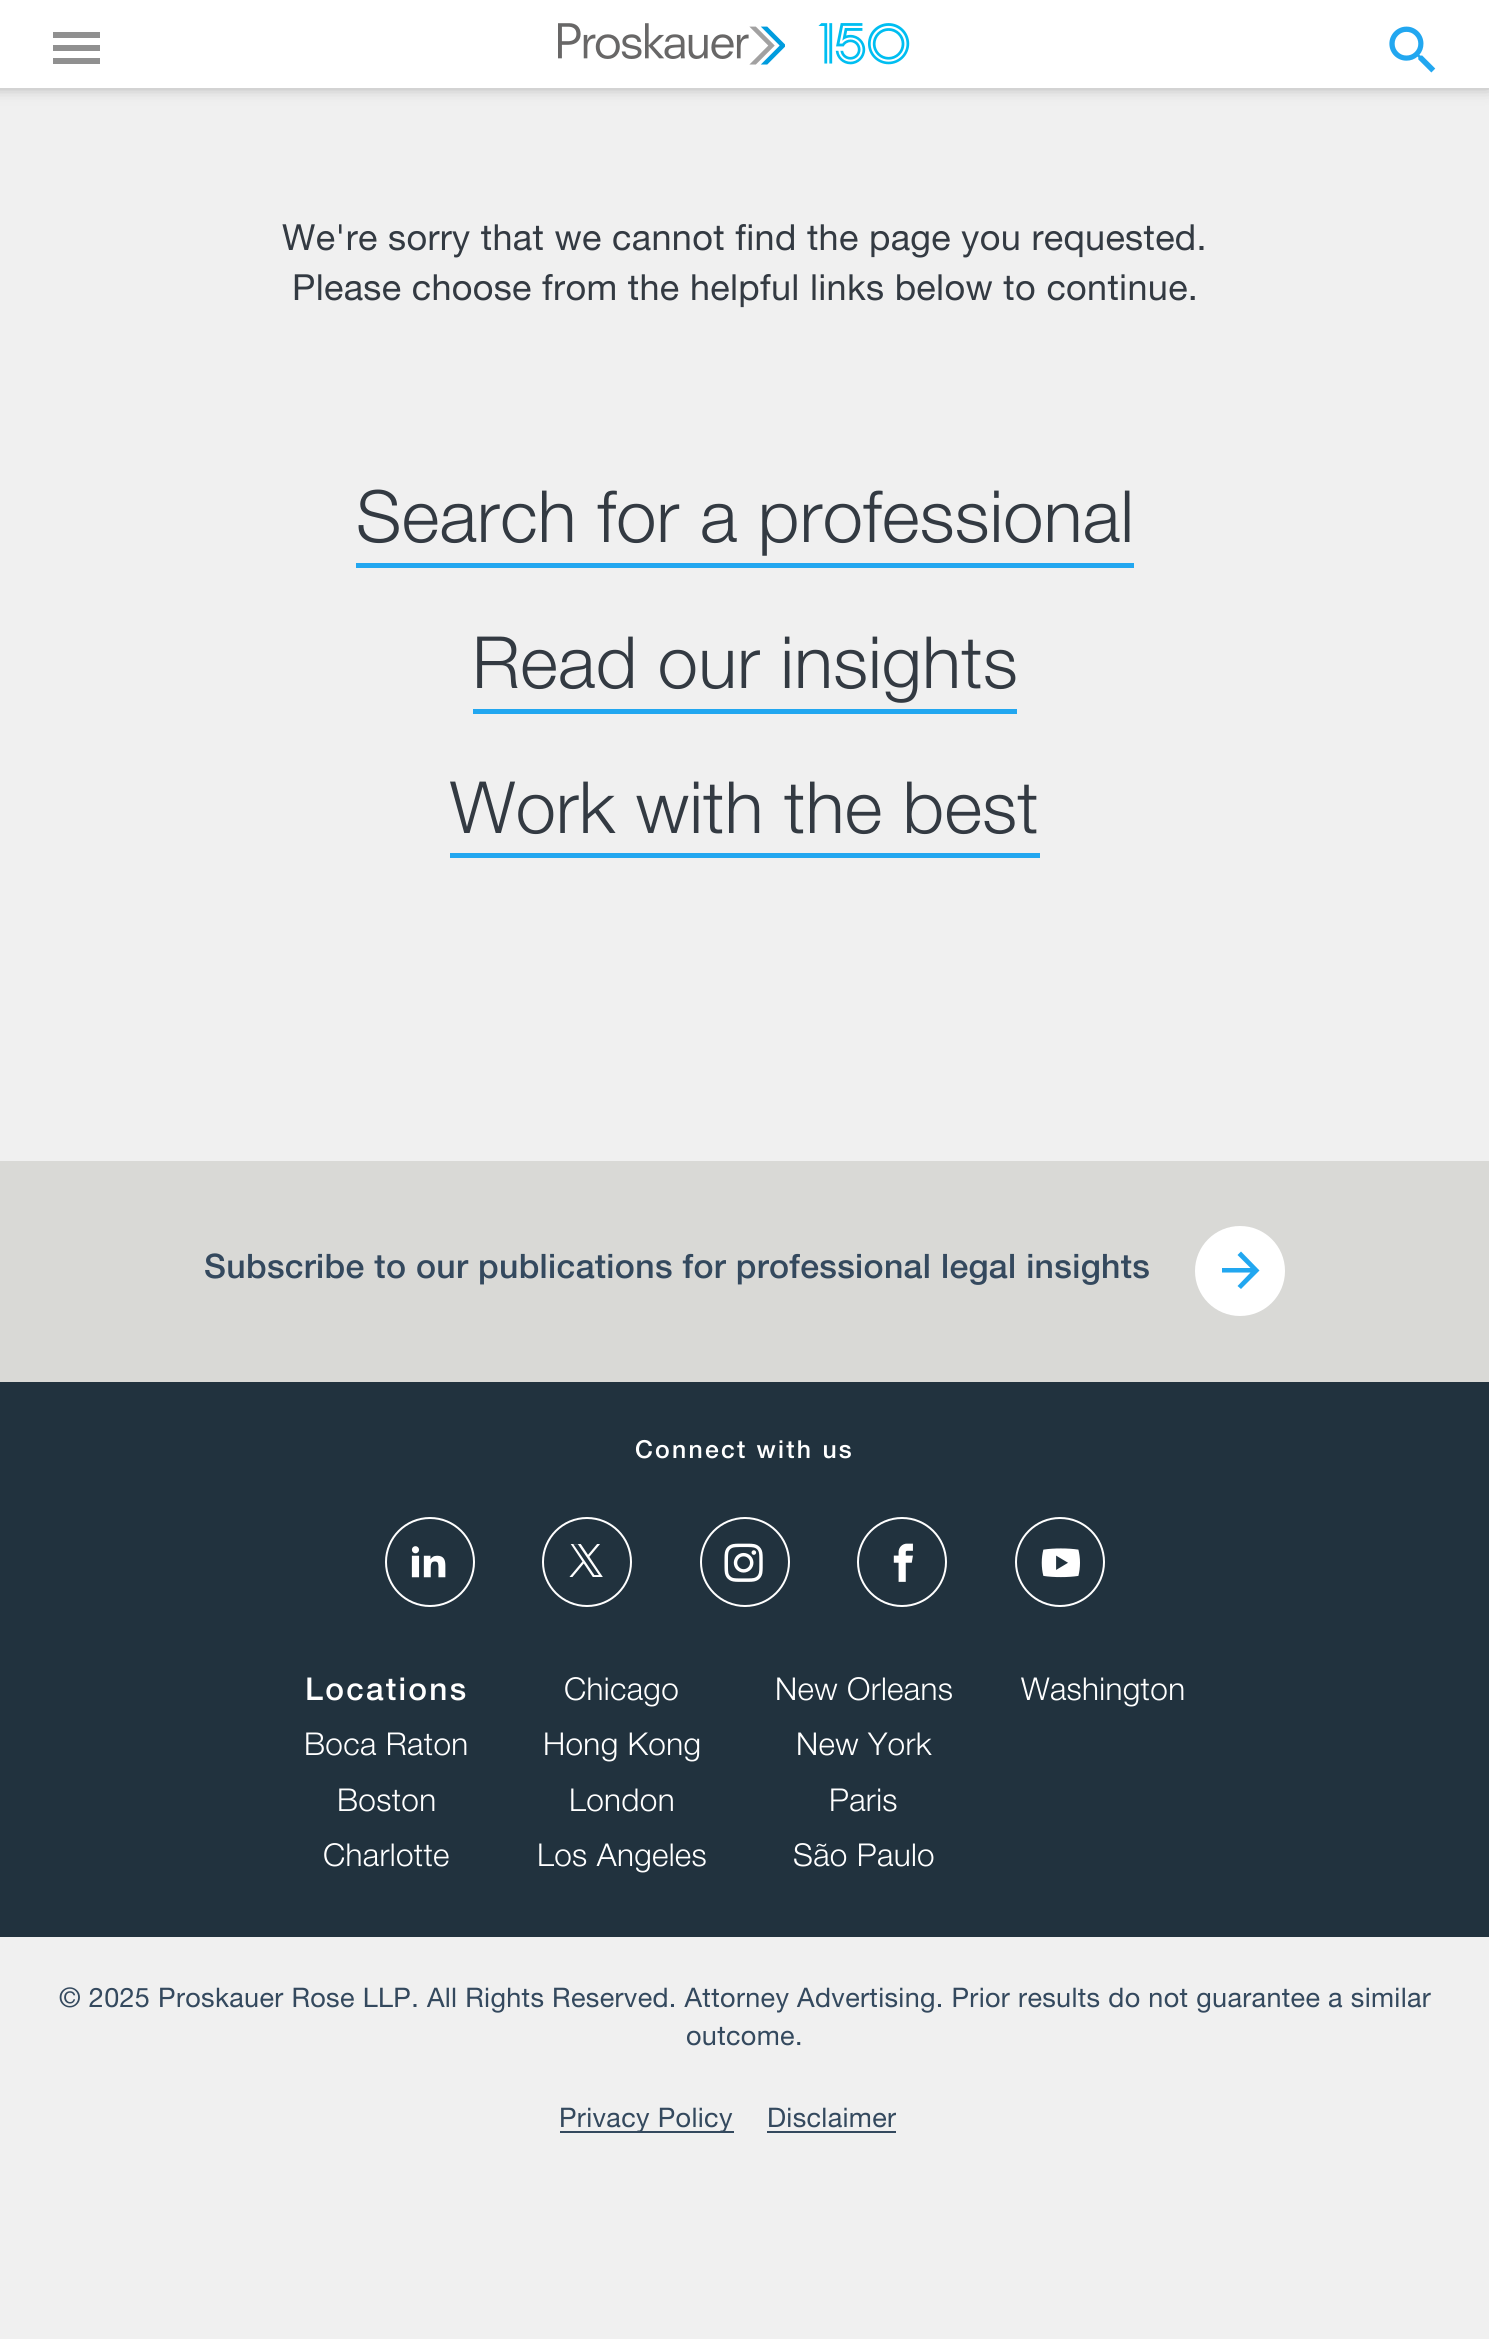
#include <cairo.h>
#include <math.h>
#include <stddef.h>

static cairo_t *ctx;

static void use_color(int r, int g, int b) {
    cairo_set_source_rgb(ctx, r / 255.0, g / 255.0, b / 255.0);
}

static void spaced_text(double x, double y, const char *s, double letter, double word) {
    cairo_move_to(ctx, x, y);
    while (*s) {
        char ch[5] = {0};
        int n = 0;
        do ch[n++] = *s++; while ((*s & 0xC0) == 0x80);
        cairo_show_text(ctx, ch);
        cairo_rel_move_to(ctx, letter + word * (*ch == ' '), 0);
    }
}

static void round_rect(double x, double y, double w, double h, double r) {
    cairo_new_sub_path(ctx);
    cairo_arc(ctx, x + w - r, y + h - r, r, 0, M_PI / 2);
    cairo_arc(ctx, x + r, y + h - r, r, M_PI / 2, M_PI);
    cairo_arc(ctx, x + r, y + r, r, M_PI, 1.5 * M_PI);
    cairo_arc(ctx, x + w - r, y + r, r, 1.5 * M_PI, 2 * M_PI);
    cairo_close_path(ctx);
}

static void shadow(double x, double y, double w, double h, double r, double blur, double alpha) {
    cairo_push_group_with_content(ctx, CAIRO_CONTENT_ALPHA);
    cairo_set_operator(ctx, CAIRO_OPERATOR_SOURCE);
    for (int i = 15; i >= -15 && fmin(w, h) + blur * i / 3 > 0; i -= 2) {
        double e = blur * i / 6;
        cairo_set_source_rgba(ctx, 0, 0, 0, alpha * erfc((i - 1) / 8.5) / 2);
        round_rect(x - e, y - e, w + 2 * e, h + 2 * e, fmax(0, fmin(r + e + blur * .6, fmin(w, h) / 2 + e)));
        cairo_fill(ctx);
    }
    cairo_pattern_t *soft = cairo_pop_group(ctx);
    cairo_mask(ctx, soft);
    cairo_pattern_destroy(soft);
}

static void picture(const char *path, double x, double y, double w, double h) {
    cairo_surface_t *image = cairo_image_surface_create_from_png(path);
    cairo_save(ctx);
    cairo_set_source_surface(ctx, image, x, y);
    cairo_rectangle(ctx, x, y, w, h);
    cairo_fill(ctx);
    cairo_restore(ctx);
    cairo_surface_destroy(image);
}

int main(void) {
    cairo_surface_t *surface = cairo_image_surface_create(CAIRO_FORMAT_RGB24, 1489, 2339);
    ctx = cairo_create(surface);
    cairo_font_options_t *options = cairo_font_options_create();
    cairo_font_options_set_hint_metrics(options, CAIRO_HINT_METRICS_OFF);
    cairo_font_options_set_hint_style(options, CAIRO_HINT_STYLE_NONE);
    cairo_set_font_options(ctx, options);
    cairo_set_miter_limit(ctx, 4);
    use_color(240, 240, 240);
    cairo_paint(ctx);
    use_color(0, 0, 0);
    shadow(-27, -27, 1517, 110, 0, 9, 0.48);
    use_color(255, 255, 255);
    cairo_rectangle(ctx, 0, 0, 1489, 88);
    cairo_fill(ctx);
    use_color(144, 144, 144);
    cairo_new_path(ctx);
    cairo_move_to(ctx, 53, 32);
    cairo_line_to(ctx, 100, 32);
    cairo_line_to(ctx, 100, 38);
    cairo_line_to(ctx, 53, 38);
    cairo_close_path(ctx);
    cairo_move_to(ctx, 53, 51);
    cairo_line_to(ctx, 53, 45);
    cairo_line_to(ctx, 100, 45);
    cairo_line_to(ctx, 100, 51);
    cairo_close_path(ctx);
    cairo_move_to(ctx, 53, 64);
    cairo_line_to(ctx, 53, 58);
    cairo_line_to(ctx, 100, 58);
    cairo_line_to(ctx, 100, 64);
    cairo_close_path(ctx);
    cairo_fill(ctx);
    picture("img1.png", 558, 23, 227, 42);
    picture("img2.png", 818, 23, 92, 42);
    picture("img3.png", 1389, 26, 47, 47);
    cairo_select_font_face(ctx, "Helvetica Neue", CAIRO_FONT_SLANT_NORMAL, CAIRO_FONT_WEIGHT_NORMAL);
    cairo_set_font_size(ctx, 36);
    use_color(51, 58, 66);
    spaced_text(282, 250, "We're sorry that we cannot find the page you requested.", 0.34, 0);
    spaced_text(292, 300, "Please choose from the helpful links below to continue.", 0.34, 0);
    cairo_select_font_face(ctx, "Helvetica Neue Light", CAIRO_FONT_SLANT_NORMAL, CAIRO_FONT_WEIGHT_NORMAL);
    cairo_set_font_size(ctx, 72);
    spaced_text(356, 542, "Search for a professional", 0.34, 0);
    use_color(34, 167, 240);
    cairo_rectangle(ctx, 356, 563, 778, 5);
    cairo_fill(ctx);
    use_color(51, 58, 66);
    spaced_text(472, 688, "Read our insights", 0.34, 0);
    use_color(34, 167, 240);
    cairo_rectangle(ctx, 473, 709, 544, 5);
    cairo_fill(ctx);
    use_color(51, 58, 66);
    spaced_text(450, 833, "Work with the best", 0.34, 0);
    use_color(34, 167, 240);
    cairo_rectangle(ctx, 450, 853, 590, 5);
    cairo_fill(ctx);
    use_color(217, 217, 214);
    cairo_rectangle(ctx, 0, 1161, 1489, 221);
    cairo_fill(ctx);
    cairo_select_font_face(ctx, "Helvetica Neue Medium", CAIRO_FONT_SLANT_NORMAL, CAIRO_FONT_WEIGHT_NORMAL);
    cairo_set_font_size(ctx, 33.75);
    use_color(52, 73, 94);
    spaced_text(204, 1278, "Subscribe to our publications for professional legal insights", 0.34, 0);
    use_color(255, 255, 255);
    cairo_new_path(ctx);
    cairo_arc(ctx, 1240, 1271, 45, 0, 2 * M_PI);
    cairo_fill(ctx);
    use_color(34, 167, 240);
    cairo_new_path(ctx);
    cairo_move_to(ctx, 1241, 1251.5);
    cairo_line_to(ctx, 1259.5, 1270.5);
    cairo_line_to(ctx, 1241, 1289);
    cairo_line_to(ctx, 1237.5, 1286);
    cairo_line_to(ctx, 1250.5, 1272.5);
    cairo_line_to(ctx, 1222, 1272.5);
    cairo_line_to(ctx, 1222, 1268);
    cairo_line_to(ctx, 1250.5, 1268);
    cairo_line_to(ctx, 1237.5, 1255);
    cairo_close_path(ctx);
    cairo_fill(ctx);
    use_color(33, 50, 62);
    cairo_rectangle(ctx, 0, 1382, 1489, 555);
    cairo_fill(ctx);
    cairo_set_font_size(ctx, 24.75);
    use_color(255, 255, 255);
    spaced_text(635, 1458, "Connect with us", 2.25, 0);
    cairo_new_path(ctx);
    cairo_arc(ctx, 430, 1562, 44, 0, 2 * M_PI);
    cairo_stroke(ctx);
    picture("img4.png", 411, 1546, 35, 32);
    cairo_arc(ctx, 587, 1562, 44, 0, 2 * M_PI);
    cairo_stroke(ctx);
    picture("img5.png", 569, 1544, 34, 33);
    cairo_arc(ctx, 745, 1562, 44, 0, 2 * M_PI);
    cairo_stroke(ctx);
    picture("img6.png", 724, 1543, 39, 39);
    cairo_arc(ctx, 902, 1562, 44, 0, 2 * M_PI);
    cairo_stroke(ctx);
    picture("img7.png", 893, 1543, 20, 39);
    cairo_arc(ctx, 1060, 1562, 44, 0, 2 * M_PI);
    cairo_stroke(ctx);
    picture("img8.png", 1041, 1548, 39, 30);
    cairo_set_font_size(ctx, 31.5);
    spaced_text(305, 1700, "Locations", 2.25, 0);
    cairo_select_font_face(ctx, "Helvetica Neue Light", CAIRO_FONT_SLANT_NORMAL, CAIRO_FONT_WEIGHT_NORMAL);
    spaced_text(304, 1755, "Boca Raton", 0.34, 0);
    spaced_text(337, 1811, "Boston", 0.34, 0);
    spaced_text(323, 1866, "Charlotte", 0.34, 0);
    spaced_text(564, 1700, "Chicago", 0.34, 0);
    spaced_text(543, 1755, "Hong Kong", 0.34, 0);
    spaced_text(569, 1811, "London", 0.34, 0);
    spaced_text(537, 1866, "Los Angeles", 0.34, 0);
    spaced_text(775, 1700, "New Orleans", 0.34, 0);
    spaced_text(796, 1755, "New York", 0.34, 0);
    spaced_text(829, 1811, "Paris", 0.34, 0);
    spaced_text(793, 1866, "São Paulo", 0.34, 0);
    spaced_text(1021, 1700, "Washington", 0.34, 0);
    cairo_select_font_face(ctx, "Helvetica Neue", CAIRO_FONT_SLANT_NORMAL, CAIRO_FONT_WEIGHT_NORMAL);
    cairo_set_font_size(ctx, 27);
    use_color(52, 73, 94);
    spaced_text(59, 2007, "© 2025 Proskauer Rose LLP. All Rights Reserved. Attorney Advertising. Prior results do not guarantee a similar", 0.34, 0);
    spaced_text(686, 2045, "outcome.", 0.34, 0);
    cairo_rectangle(ctx, 560, 2131, 174, 2);
    cairo_fill(ctx);
    spaced_text(559, 2127, "Privacy Policy", 0.34, 0);
    spaced_text(767, 2127, "Disclaimer", 0.34, 0);
    cairo_rectangle(ctx, 767, 2131, 129, 2);
    cairo_fill(ctx);
    cairo_surface_write_to_png(surface, "result.png");
    cairo_font_options_destroy(options);
    cairo_destroy(ctx);
    cairo_surface_destroy(surface);
    return 0;
}
